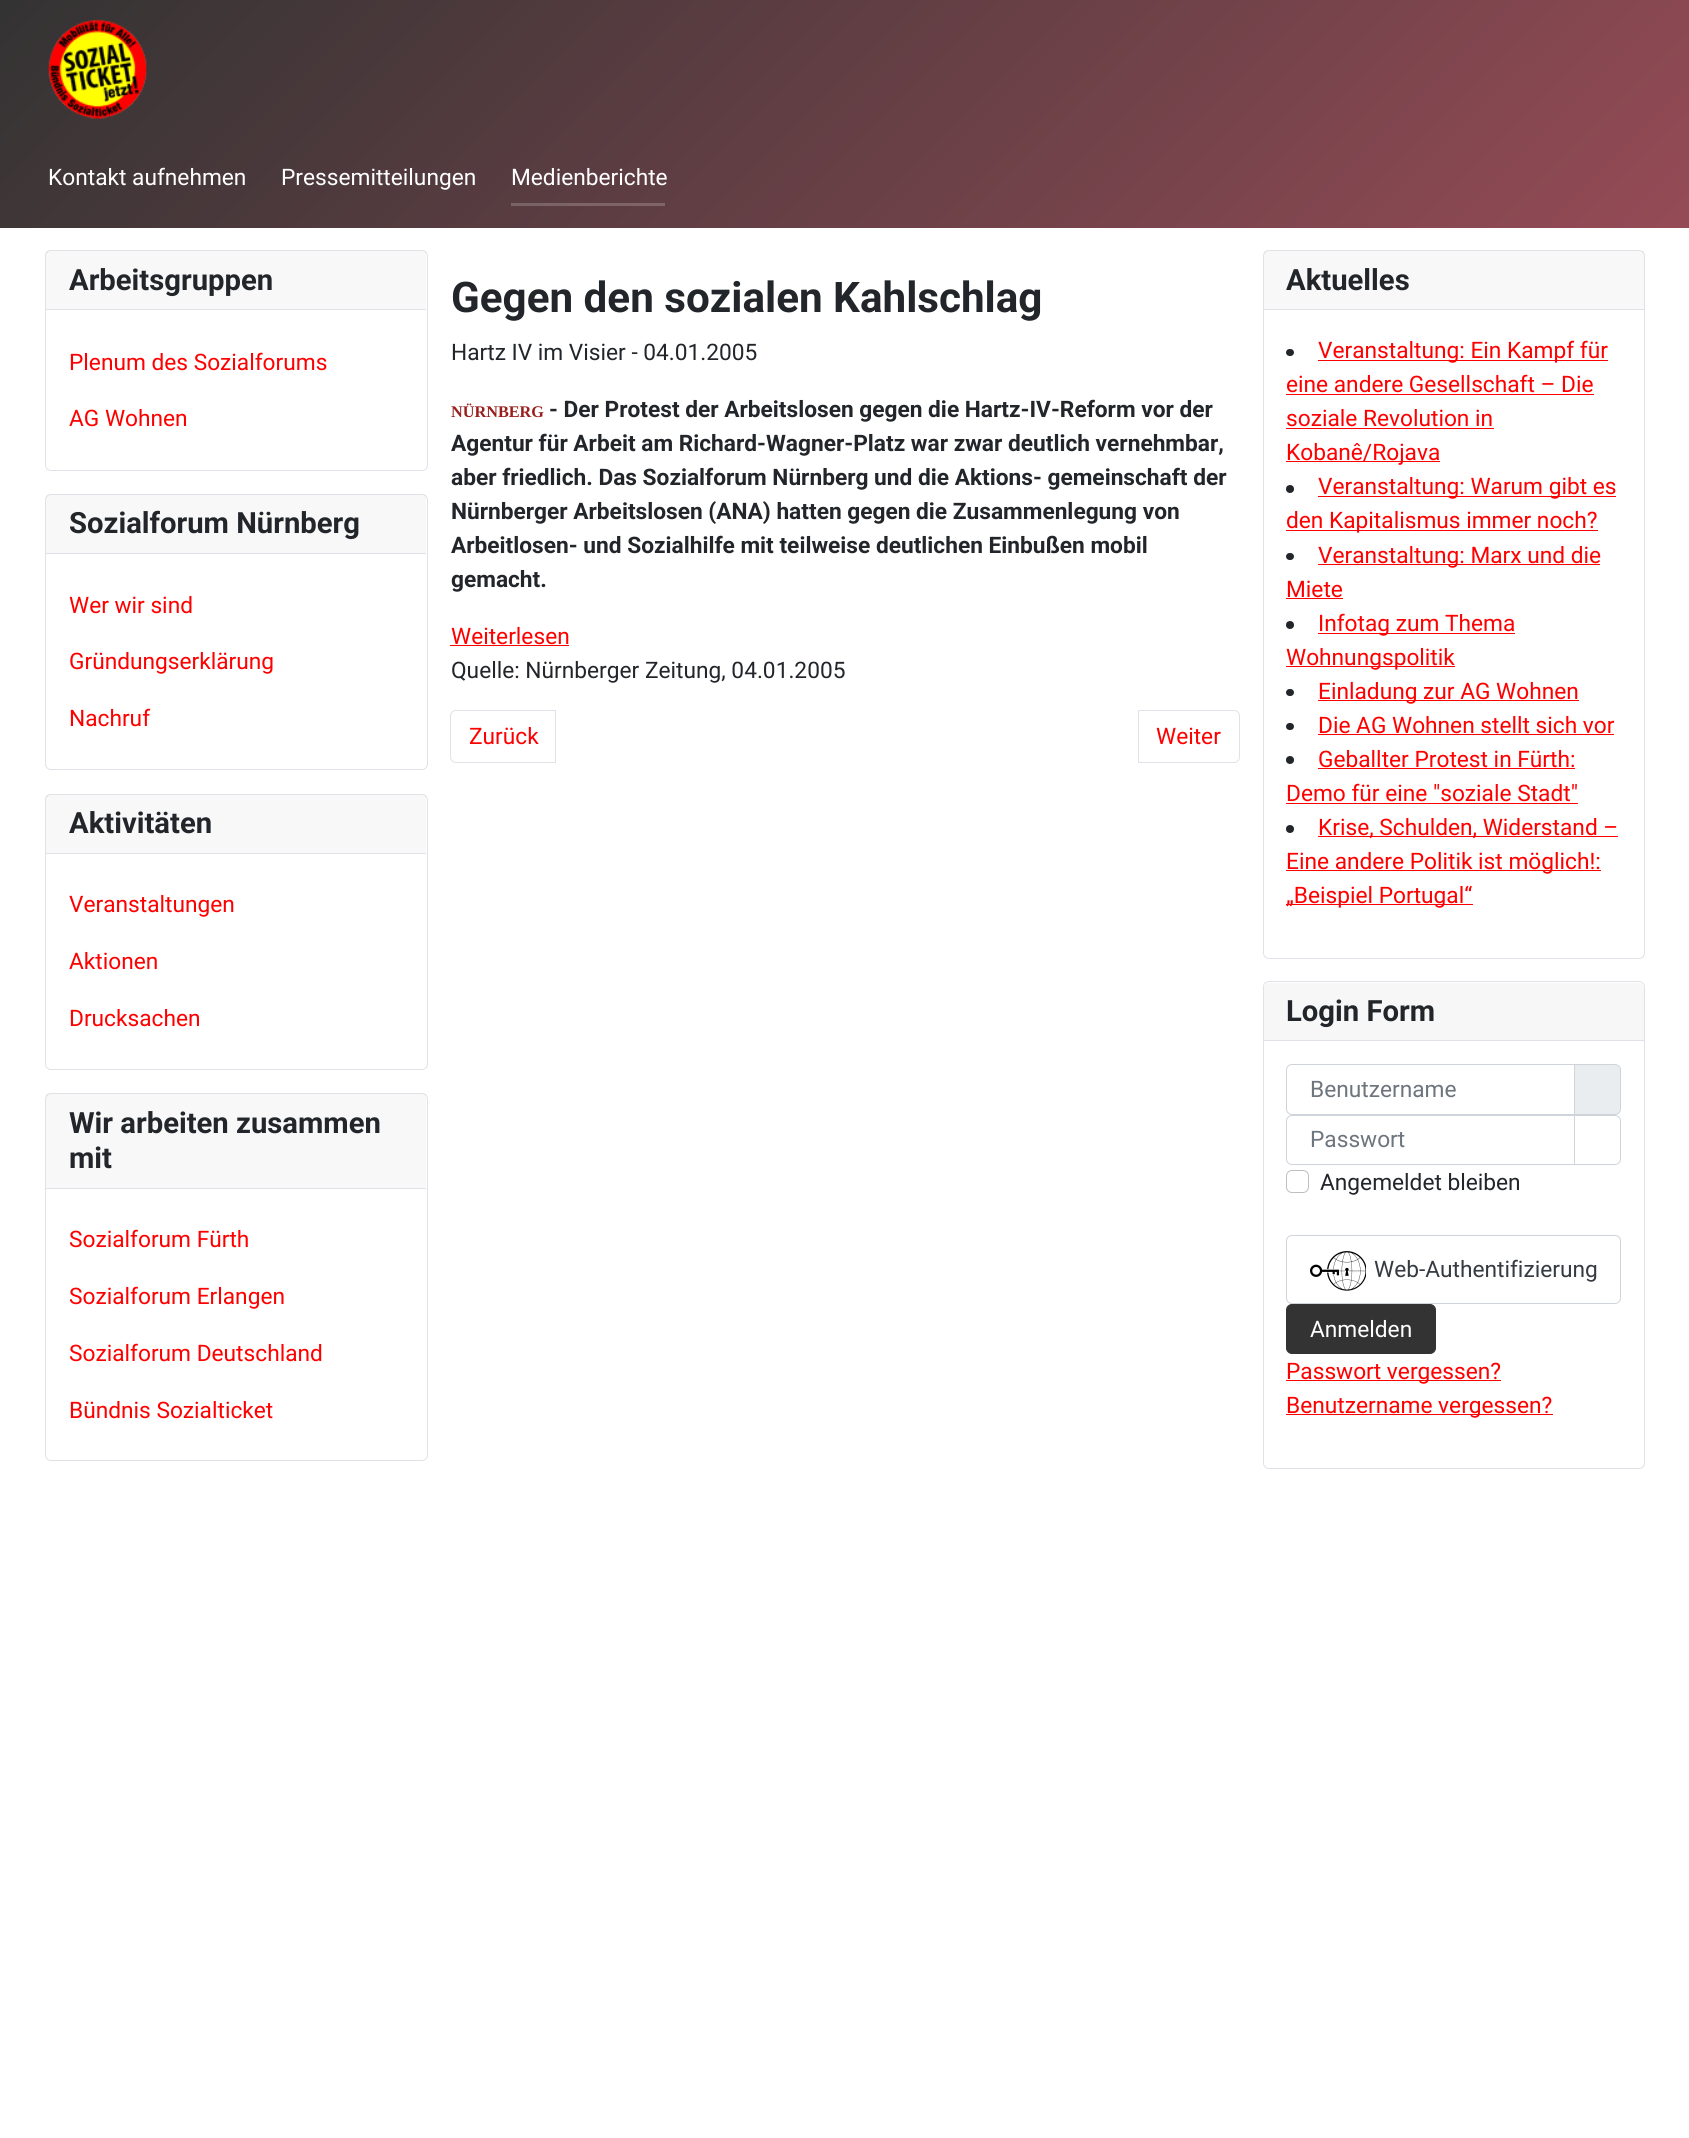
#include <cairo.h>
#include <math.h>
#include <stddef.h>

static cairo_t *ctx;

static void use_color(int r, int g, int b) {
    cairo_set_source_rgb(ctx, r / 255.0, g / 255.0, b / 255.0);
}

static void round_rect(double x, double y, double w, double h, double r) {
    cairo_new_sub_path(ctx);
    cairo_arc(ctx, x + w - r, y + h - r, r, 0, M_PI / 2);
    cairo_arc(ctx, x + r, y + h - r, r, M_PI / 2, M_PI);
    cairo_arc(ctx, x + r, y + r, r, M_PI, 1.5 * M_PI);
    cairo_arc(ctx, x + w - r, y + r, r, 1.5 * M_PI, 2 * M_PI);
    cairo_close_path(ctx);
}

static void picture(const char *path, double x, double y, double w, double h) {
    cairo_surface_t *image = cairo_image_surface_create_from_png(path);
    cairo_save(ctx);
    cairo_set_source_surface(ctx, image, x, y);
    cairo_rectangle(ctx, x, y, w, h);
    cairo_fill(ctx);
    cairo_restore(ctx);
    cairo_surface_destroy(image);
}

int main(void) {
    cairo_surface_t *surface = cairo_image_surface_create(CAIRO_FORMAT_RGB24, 1689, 2138);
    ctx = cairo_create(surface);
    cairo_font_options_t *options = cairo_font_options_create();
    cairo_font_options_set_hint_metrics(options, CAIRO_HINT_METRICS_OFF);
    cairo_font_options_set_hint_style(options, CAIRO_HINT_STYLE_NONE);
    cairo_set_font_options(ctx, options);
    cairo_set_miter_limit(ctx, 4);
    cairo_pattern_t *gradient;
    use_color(255, 255, 255);
    cairo_paint(ctx);
    gradient = cairo_pattern_create_linear(366, -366, 1324, 593);
    cairo_pattern_add_color_stop_rgba(gradient, 0, 0.2, 0.2, 0.2, 1);
    cairo_pattern_add_color_stop_rgba(gradient, 1, 0.584, 0.294, 0.337, 1);
    cairo_set_source(ctx, gradient);
    cairo_pattern_destroy(gradient);
    cairo_rectangle(ctx, 0, 0, 1689, 228);
    cairo_fill(ctx);
    gradient = cairo_pattern_create_linear(366, -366, 1324, 593);
    cairo_pattern_add_color_stop_rgba(gradient, 0, 0.361, 0.361, 0.361, 1);
    cairo_pattern_add_color_stop_rgba(gradient, 1, 0.667, 0.435, 0.471, 1);
    cairo_set_source(ctx, gradient);
    cairo_pattern_destroy(gradient);
    cairo_rectangle(ctx, 511, 203, 154, 3);
    cairo_fill(ctx);
    picture("img1.png", 48, 19, 99, 100);
    cairo_select_font_face(ctx, "Roboto", CAIRO_FONT_SLANT_NORMAL, CAIRO_FONT_WEIGHT_NORMAL);
    cairo_set_font_size(ctx, 22.7);
    use_color(255, 255, 255);
    cairo_move_to(ctx, 48, 185);
    cairo_show_text(ctx, "Kontakt aufnehmen");
    cairo_move_to(ctx, 281, 185);
    cairo_show_text(ctx, "Pressemitteilungen");
    cairo_move_to(ctx, 511, 185);
    cairo_show_text(ctx, "Medienberichte");
    round_rect(45.5, 250.5, 382, 220, 5.5);
    use_color(223, 227, 231);
    cairo_set_line_width(ctx, 1);
    cairo_stroke(ctx);
    cairo_set_source_rgba(ctx, 0, 0, 0, 0.03);
    cairo_rectangle(ctx, 46, 251, 380, 58);
    cairo_fill(ctx);
    use_color(223, 227, 231);
    cairo_rectangle(ctx, 46, 309, 380, 1);
    cairo_fill(ctx);
    cairo_select_font_face(ctx, "Roboto", CAIRO_FONT_SLANT_NORMAL, CAIRO_FONT_WEIGHT_BOLD);
    cairo_set_font_size(ctx, 29.25);
    use_color(34, 38, 42);
    cairo_move_to(ctx, 69, 290);
    cairo_show_text(ctx, "Arbeitsgruppen");
    cairo_select_font_face(ctx, "Roboto", CAIRO_FONT_SLANT_NORMAL, CAIRO_FONT_WEIGHT_NORMAL);
    cairo_set_font_size(ctx, 22.7);
    use_color(255, 0, 0);
    cairo_move_to(ctx, 69, 370);
    cairo_show_text(ctx, "Plenum des Sozialforums");
    cairo_move_to(ctx, 69, 426);
    cairo_show_text(ctx, "AG Wohnen");
    round_rect(45.5, 494.5, 382, 275, 5.5);
    use_color(223, 227, 231);
    cairo_stroke(ctx);
    cairo_set_source_rgba(ctx, 0, 0, 0, 0.03);
    cairo_rectangle(ctx, 46, 495, 380, 58);
    cairo_fill(ctx);
    use_color(223, 227, 231);
    cairo_rectangle(ctx, 46, 553, 380, 1);
    cairo_fill(ctx);
    cairo_select_font_face(ctx, "Roboto", CAIRO_FONT_SLANT_NORMAL, CAIRO_FONT_WEIGHT_BOLD);
    cairo_set_font_size(ctx, 29.25);
    use_color(34, 38, 42);
    cairo_move_to(ctx, 69, 533);
    cairo_show_text(ctx, "Sozialforum Nürnberg");
    cairo_select_font_face(ctx, "Roboto", CAIRO_FONT_SLANT_NORMAL, CAIRO_FONT_WEIGHT_NORMAL);
    cairo_set_font_size(ctx, 22.7);
    use_color(255, 0, 0);
    cairo_move_to(ctx, 69, 613);
    cairo_show_text(ctx, "Wer wir sind");
    cairo_move_to(ctx, 69, 669);
    cairo_show_text(ctx, "Gründungserklärung");
    cairo_move_to(ctx, 69, 726);
    cairo_show_text(ctx, "Nachruf");
    round_rect(45.5, 794.5, 382, 275, 5.5);
    use_color(223, 227, 231);
    cairo_stroke(ctx);
    cairo_set_source_rgba(ctx, 0, 0, 0, 0.03);
    cairo_rectangle(ctx, 46, 795, 380, 58);
    cairo_fill(ctx);
    use_color(223, 227, 231);
    cairo_rectangle(ctx, 46, 853, 380, 1);
    cairo_fill(ctx);
    cairo_select_font_face(ctx, "Roboto", CAIRO_FONT_SLANT_NORMAL, CAIRO_FONT_WEIGHT_BOLD);
    cairo_set_font_size(ctx, 29.25);
    use_color(34, 38, 42);
    cairo_move_to(ctx, 69, 833);
    cairo_show_text(ctx, "Aktivitäten");
    cairo_select_font_face(ctx, "Roboto", CAIRO_FONT_SLANT_NORMAL, CAIRO_FONT_WEIGHT_NORMAL);
    cairo_set_font_size(ctx, 22.7);
    use_color(255, 0, 0);
    cairo_move_to(ctx, 69, 912);
    cairo_show_text(ctx, "Veranstaltungen");
    cairo_move_to(ctx, 69, 969);
    cairo_show_text(ctx, "Aktionen");
    cairo_move_to(ctx, 69, 1026);
    cairo_show_text(ctx, "Drucksachen");
    round_rect(45.5, 1093.5, 382, 367, 5.5);
    use_color(223, 227, 231);
    cairo_stroke(ctx);
    cairo_set_source_rgba(ctx, 0, 0, 0, 0.03);
    cairo_rectangle(ctx, 46, 1094, 380, 94);
    cairo_fill(ctx);
    use_color(223, 227, 231);
    cairo_rectangle(ctx, 46, 1188, 380, 1);
    cairo_fill(ctx);
    cairo_select_font_face(ctx, "Roboto", CAIRO_FONT_SLANT_NORMAL, CAIRO_FONT_WEIGHT_BOLD);
    cairo_set_font_size(ctx, 29.25);
    use_color(34, 38, 42);
    cairo_move_to(ctx, 69, 1133);
    cairo_show_text(ctx, "Wir arbeiten zusammen");
    cairo_move_to(ctx, 69, 1168);
    cairo_show_text(ctx, "mit");
    cairo_select_font_face(ctx, "Roboto", CAIRO_FONT_SLANT_NORMAL, CAIRO_FONT_WEIGHT_NORMAL);
    cairo_set_font_size(ctx, 22.7);
    use_color(255, 0, 0);
    cairo_move_to(ctx, 69, 1247);
    cairo_show_text(ctx, "Sozialforum Fürth");
    cairo_move_to(ctx, 69, 1304);
    cairo_show_text(ctx, "Sozialforum Erlangen");
    cairo_move_to(ctx, 69, 1361);
    cairo_show_text(ctx, "Sozialforum Deutschland");
    cairo_move_to(ctx, 69, 1418);
    cairo_show_text(ctx, "Bündnis Sozialticket");
    cairo_select_font_face(ctx, "Roboto", CAIRO_FONT_SLANT_NORMAL, CAIRO_FONT_WEIGHT_BOLD);
    cairo_set_font_size(ctx, 42.2);
    use_color(34, 38, 42);
    cairo_move_to(ctx, 451, 312);
    cairo_show_text(ctx, "Gegen den sozialen Kahlschlag");
    cairo_select_font_face(ctx, "Roboto", CAIRO_FONT_SLANT_NORMAL, CAIRO_FONT_WEIGHT_NORMAL);
    cairo_set_font_size(ctx, 22.7);
    cairo_move_to(ctx, 451, 360);
    cairo_show_text(ctx, "Hartz IV im Visier - 04.01.2005");
    cairo_select_font_face(ctx, "Liberation Serif", CAIRO_FONT_SLANT_NORMAL, CAIRO_FONT_WEIGHT_BOLD);
    cairo_set_font_size(ctx, 16.25);
    use_color(152, 31, 29);
    cairo_move_to(ctx, 451, 417);
    cairo_show_text(ctx, "NÜRNBERG");
    cairo_select_font_face(ctx, "Roboto", CAIRO_FONT_SLANT_NORMAL, CAIRO_FONT_WEIGHT_BOLD);
    cairo_set_font_size(ctx, 22.7);
    use_color(34, 38, 42);
    cairo_move_to(ctx, 549, 417);
    cairo_show_text(ctx, "- Der Protest der Arbeitslosen gegen die Hartz-IV-Reform vor der");
    cairo_move_to(ctx, 451, 451);
    cairo_show_text(ctx, "Agentur für Arbeit am Richard-Wagner-Platz war zwar deutlich vernehmbar,");
    cairo_move_to(ctx, 451, 485);
    cairo_show_text(ctx, "aber friedlich. Das Sozialforum Nürnberg und die Aktions- gemeinschaft der");
    cairo_move_to(ctx, 451, 519);
    cairo_show_text(ctx, "Nürnberger Arbeitslosen (ANA) hatten gegen die Zusammenlegung von");
    cairo_move_to(ctx, 451, 553);
    cairo_show_text(ctx, "Arbeitlosen- und Sozialhilfe mit teilweise deutlichen Einbußen mobil");
    cairo_move_to(ctx, 451, 587);
    cairo_show_text(ctx, "gemacht.");
    cairo_select_font_face(ctx, "Roboto", CAIRO_FONT_SLANT_NORMAL, CAIRO_FONT_WEIGHT_NORMAL);
    use_color(255, 0, 0);
    cairo_move_to(ctx, 451, 644);
    cairo_show_text(ctx, "Weiterlesen");
    cairo_rectangle(ctx, 450, 645, 119, 1);
    cairo_fill(ctx);
    use_color(34, 38, 42);
    cairo_move_to(ctx, 451, 678);
    cairo_show_text(ctx, "Quelle: Nürnberger Zeitung, 04.01.2005");
    cairo_new_path(ctx);
    cairo_move_to(ctx, 456, 710.5);
    cairo_line_to(ctx, 555.5, 710.5);
    cairo_line_to(ctx, 555.5, 762.5);
    cairo_line_to(ctx, 456, 762.5);
    cairo_curve_to(ctx, 453, 762.5, 450.5, 760, 450.5, 757);
    cairo_line_to(ctx, 450.5, 716);
    cairo_curve_to(ctx, 450.5, 713, 453, 710.5, 456, 710.5);
    cairo_close_path(ctx);
    use_color(223, 227, 231);
    cairo_stroke(ctx);
    use_color(255, 0, 0);
    cairo_move_to(ctx, 469, 744);
    cairo_show_text(ctx, "Zurück");
    cairo_new_path(ctx);
    cairo_move_to(ctx, 1138.5, 710.5);
    cairo_line_to(ctx, 1234, 710.5);
    cairo_curve_to(ctx, 1237, 710.5, 1239.5, 713, 1239.5, 716);
    cairo_line_to(ctx, 1239.5, 757);
    cairo_curve_to(ctx, 1239.5, 760, 1237, 762.5, 1234, 762.5);
    cairo_line_to(ctx, 1138.5, 762.5);
    cairo_close_path(ctx);
    use_color(223, 227, 231);
    cairo_stroke(ctx);
    use_color(255, 0, 0);
    cairo_move_to(ctx, 1156, 744);
    cairo_show_text(ctx, "Weiter");
    round_rect(1263.5, 250.5, 381, 708, 5.5);
    use_color(223, 227, 231);
    cairo_stroke(ctx);
    cairo_set_source_rgba(ctx, 0, 0, 0, 0.03);
    cairo_rectangle(ctx, 1264, 251, 380, 58);
    cairo_fill(ctx);
    use_color(223, 227, 231);
    cairo_rectangle(ctx, 1264, 309, 380, 1);
    cairo_fill(ctx);
    cairo_select_font_face(ctx, "Roboto", CAIRO_FONT_SLANT_NORMAL, CAIRO_FONT_WEIGHT_BOLD);
    cairo_set_font_size(ctx, 29.25);
    use_color(34, 38, 42);
    cairo_move_to(ctx, 1286, 290);
    cairo_show_text(ctx, "Aktuelles");
    round_rect(1286, 349, 8, 7, 3.5);
    cairo_fill(ctx);
    use_color(255, 0, 0);
    cairo_rectangle(ctx, 1318, 360, 290, 1);
    cairo_fill(ctx);
    cairo_select_font_face(ctx, "Roboto", CAIRO_FONT_SLANT_NORMAL, CAIRO_FONT_WEIGHT_NORMAL);
    cairo_set_font_size(ctx, 22.7);
    cairo_move_to(ctx, 1318, 358);
    cairo_show_text(ctx, "Veranstaltung: Ein Kampf für");
    cairo_move_to(ctx, 1286, 392);
    cairo_show_text(ctx, "eine andere Gesellschaft – Die");
    cairo_rectangle(ctx, 1286, 394, 308, 1);
    cairo_fill(ctx);
    cairo_move_to(ctx, 1286, 426);
    cairo_show_text(ctx, "soziale Revolution in");
    cairo_rectangle(ctx, 1286, 428, 208, 1);
    cairo_fill(ctx);
    cairo_rectangle(ctx, 1286, 461, 154, 1);
    cairo_fill(ctx);
    cairo_move_to(ctx, 1286, 460);
    cairo_show_text(ctx, "Kobanê/Rojava");
    use_color(34, 38, 42);
    cairo_new_path(ctx);
    cairo_arc(ctx, 1290, 489, 4, 0, 2 * M_PI);
    cairo_fill(ctx);
    use_color(255, 0, 0);
    cairo_rectangle(ctx, 1318, 496, 298, 1);
    cairo_fill(ctx);
    cairo_move_to(ctx, 1318, 494);
    cairo_show_text(ctx, "Veranstaltung: Warum gibt es");
    cairo_rectangle(ctx, 1286, 530, 312, 1);
    cairo_fill(ctx);
    cairo_move_to(ctx, 1286, 528);
    cairo_show_text(ctx, "den Kapitalismus immer noch?");
    use_color(34, 38, 42);
    round_rect(1286, 553, 8, 7, 3.5);
    cairo_fill(ctx);
    use_color(255, 0, 0);
    cairo_rectangle(ctx, 1318, 564, 282, 1);
    cairo_fill(ctx);
    cairo_move_to(ctx, 1318, 563);
    cairo_show_text(ctx, "Veranstaltung: Marx und die");
    cairo_move_to(ctx, 1286, 597);
    cairo_show_text(ctx, "Miete");
    cairo_rectangle(ctx, 1286, 598, 57, 1);
    cairo_fill(ctx);
    use_color(34, 38, 42);
    cairo_arc(ctx, 1290, 625, 4, 0, 2 * M_PI);
    cairo_fill(ctx);
    use_color(255, 0, 0);
    cairo_rectangle(ctx, 1318, 633, 197, 1);
    cairo_fill(ctx);
    cairo_move_to(ctx, 1318, 631);
    cairo_show_text(ctx, "Infotag zum Thema");
    cairo_rectangle(ctx, 1286, 666, 169, 1);
    cairo_fill(ctx);
    cairo_move_to(ctx, 1286, 665);
    cairo_show_text(ctx, "Wohnungspolitik");
    use_color(34, 38, 42);
    round_rect(1286, 689, 8, 7, 3.5);
    cairo_fill(ctx);
    use_color(255, 0, 0);
    cairo_rectangle(ctx, 1318, 700, 261, 1);
    cairo_fill(ctx);
    cairo_move_to(ctx, 1318, 699);
    cairo_show_text(ctx, "Einladung zur AG Wohnen");
    use_color(34, 38, 42);
    round_rect(1286, 723, 8, 7, 3.5);
    cairo_fill(ctx);
    use_color(255, 0, 0);
    cairo_move_to(ctx, 1318, 733);
    cairo_show_text(ctx, "Die AG Wohnen stellt sich vor");
    cairo_rectangle(ctx, 1318, 734, 296, 1);
    cairo_fill(ctx);
    use_color(34, 38, 42);
    cairo_arc(ctx, 1290, 760, 4, 0, 2 * M_PI);
    cairo_fill(ctx);
    use_color(255, 0, 0);
    cairo_move_to(ctx, 1318, 767);
    cairo_show_text(ctx, "Geballter Protest in Fürth:");
    cairo_rectangle(ctx, 1318, 768, 257, 1);
    cairo_fill(ctx);
    cairo_move_to(ctx, 1286, 801);
    cairo_show_text(ctx, "Demo für eine \"soziale Stadt\"");
    cairo_rectangle(ctx, 1286, 803, 292, 1);
    cairo_fill(ctx);
    use_color(34, 38, 42);
    cairo_arc(ctx, 1290, 829, 4, 0, 2 * M_PI);
    cairo_fill(ctx);
    use_color(255, 0, 0);
    cairo_rectangle(ctx, 1318, 836, 300, 1);
    cairo_fill(ctx);
    cairo_move_to(ctx, 1318, 835);
    cairo_show_text(ctx, "Krise, Schulden, Widerstand –");
    cairo_rectangle(ctx, 1286, 870, 315, 1);
    cairo_fill(ctx);
    cairo_move_to(ctx, 1286, 869);
    cairo_show_text(ctx, "Eine andere Politik ist möglich!:");
    cairo_rectangle(ctx, 1286, 904, 187, 1);
    cairo_fill(ctx);
    cairo_move_to(ctx, 1286, 903);
    cairo_show_text(ctx, "„Beispiel Portugal“");
    round_rect(1263.5, 981.5, 381, 487, 5.5);
    use_color(223, 227, 231);
    cairo_stroke(ctx);
    use_color(247, 247, 247);
    cairo_new_path(ctx);
    cairo_move_to(ctx, 1269, 983);
    cairo_line_to(ctx, 1639, 983);
    cairo_curve_to(ctx, 1642, 983, 1644, 985, 1644, 988);
    cairo_line_to(ctx, 1644, 1041);
    cairo_line_to(ctx, 1264, 1041);
    cairo_line_to(ctx, 1264, 988);
    cairo_curve_to(ctx, 1264, 985, 1266, 983, 1269, 983);
    cairo_close_path(ctx);
    cairo_fill(ctx);
    use_color(223, 227, 231);
    cairo_rectangle(ctx, 1264, 1040, 380, 1);
    cairo_fill(ctx);
    cairo_select_font_face(ctx, "Roboto", CAIRO_FONT_SLANT_NORMAL, CAIRO_FONT_WEIGHT_BOLD);
    cairo_set_font_size(ctx, 29.25);
    use_color(34, 38, 42);
    cairo_move_to(ctx, 1286, 1021);
    cairo_show_text(ctx, "Login Form");
    use_color(234, 237, 240);
    cairo_new_path(ctx);
    cairo_move_to(ctx, 1574.5, 1064.5);
    cairo_line_to(ctx, 1615, 1064.5);
    cairo_curve_to(ctx, 1618, 1064.5, 1620.5, 1067, 1620.5, 1070);
    cairo_line_to(ctx, 1620.5, 1109);
    cairo_curve_to(ctx, 1620.5, 1112, 1618, 1114.5, 1615, 1114.5);
    cairo_line_to(ctx, 1574.5, 1114.5);
    cairo_close_path(ctx);
    cairo_fill_preserve(ctx);
    use_color(206, 212, 218);
    cairo_stroke(ctx);
    cairo_new_path(ctx);
    cairo_move_to(ctx, 1292, 1064.5);
    cairo_line_to(ctx, 1574.5, 1064.5);
    cairo_line_to(ctx, 1574.5, 1114.5);
    cairo_line_to(ctx, 1292, 1114.5);
    cairo_curve_to(ctx, 1289, 1114.5, 1286.5, 1112, 1286.5, 1109);
    cairo_line_to(ctx, 1286.5, 1070);
    cairo_curve_to(ctx, 1286.5, 1067, 1289, 1064.5, 1292, 1064.5);
    cairo_close_path(ctx);
    cairo_stroke(ctx);
    cairo_select_font_face(ctx, "Roboto", CAIRO_FONT_SLANT_NORMAL, CAIRO_FONT_WEIGHT_NORMAL);
    cairo_set_font_size(ctx, 22.7);
    use_color(109, 117, 126);
    cairo_move_to(ctx, 1310, 1097);
    cairo_show_text(ctx, "Benutzername");
    cairo_new_path(ctx);
    cairo_move_to(ctx, 1292, 1115.5);
    cairo_line_to(ctx, 1574.5, 1115.5);
    cairo_line_to(ctx, 1574.5, 1164.5);
    cairo_line_to(ctx, 1292, 1164.5);
    cairo_curve_to(ctx, 1289, 1164.5, 1286.5, 1162, 1286.5, 1159);
    cairo_line_to(ctx, 1286.5, 1121);
    cairo_curve_to(ctx, 1286.5, 1118, 1289, 1115.5, 1292, 1115.5);
    cairo_close_path(ctx);
    use_color(206, 212, 218);
    cairo_stroke(ctx);
    use_color(109, 117, 126);
    cairo_move_to(ctx, 1310, 1147);
    cairo_show_text(ctx, "Passwort");
    use_color(255, 255, 255);
    cairo_new_path(ctx);
    cairo_move_to(ctx, 1574.5, 1115.5);
    cairo_line_to(ctx, 1615, 1115.5);
    cairo_curve_to(ctx, 1618, 1115.5, 1620.5, 1118, 1620.5, 1121);
    cairo_line_to(ctx, 1620.5, 1159);
    cairo_curve_to(ctx, 1620.5, 1162, 1618, 1164.5, 1615, 1164.5);
    cairo_line_to(ctx, 1574.5, 1164.5);
    cairo_close_path(ctx);
    cairo_fill_preserve(ctx);
    use_color(206, 212, 218);
    cairo_stroke(ctx);
    round_rect(1286.5, 1170.5, 22, 22, 5.5);
    use_color(191, 191, 191);
    cairo_stroke(ctx);
    use_color(34, 38, 42);
    cairo_move_to(ctx, 1320, 1190);
    cairo_show_text(ctx, "Angemeldet bleiben");
    round_rect(1286.5, 1235.5, 334, 68, 5.5);
    use_color(206, 212, 218);
    cairo_stroke(ctx);
    picture("img2.png", 1310, 1251, 56, 40);
    use_color(53, 59, 65);
    cairo_move_to(ctx, 1374, 1277);
    cairo_show_text(ctx, "Web-Authentifizierung");
    use_color(51, 51, 51);
    round_rect(1286.5, 1304.5, 149, 49, 5.5);
    cairo_fill_preserve(ctx);
    cairo_stroke(ctx);
    use_color(255, 255, 255);
    cairo_move_to(ctx, 1310, 1337);
    cairo_show_text(ctx, "Anmelden");
    use_color(255, 0, 0);
    cairo_rectangle(ctx, 1286, 1380, 215, 1);
    cairo_fill(ctx);
    cairo_move_to(ctx, 1286, 1379);
    cairo_show_text(ctx, "Passwort vergessen?");
    cairo_rectangle(ctx, 1286, 1414, 267, 1);
    cairo_fill(ctx);
    cairo_move_to(ctx, 1286, 1413);
    cairo_show_text(ctx, "Benutzername vergessen?");
    cairo_surface_write_to_png(surface, "result.png");
    cairo_font_options_destroy(options);
    cairo_destroy(ctx);
    cairo_surface_destroy(surface);
    return 0;
}
